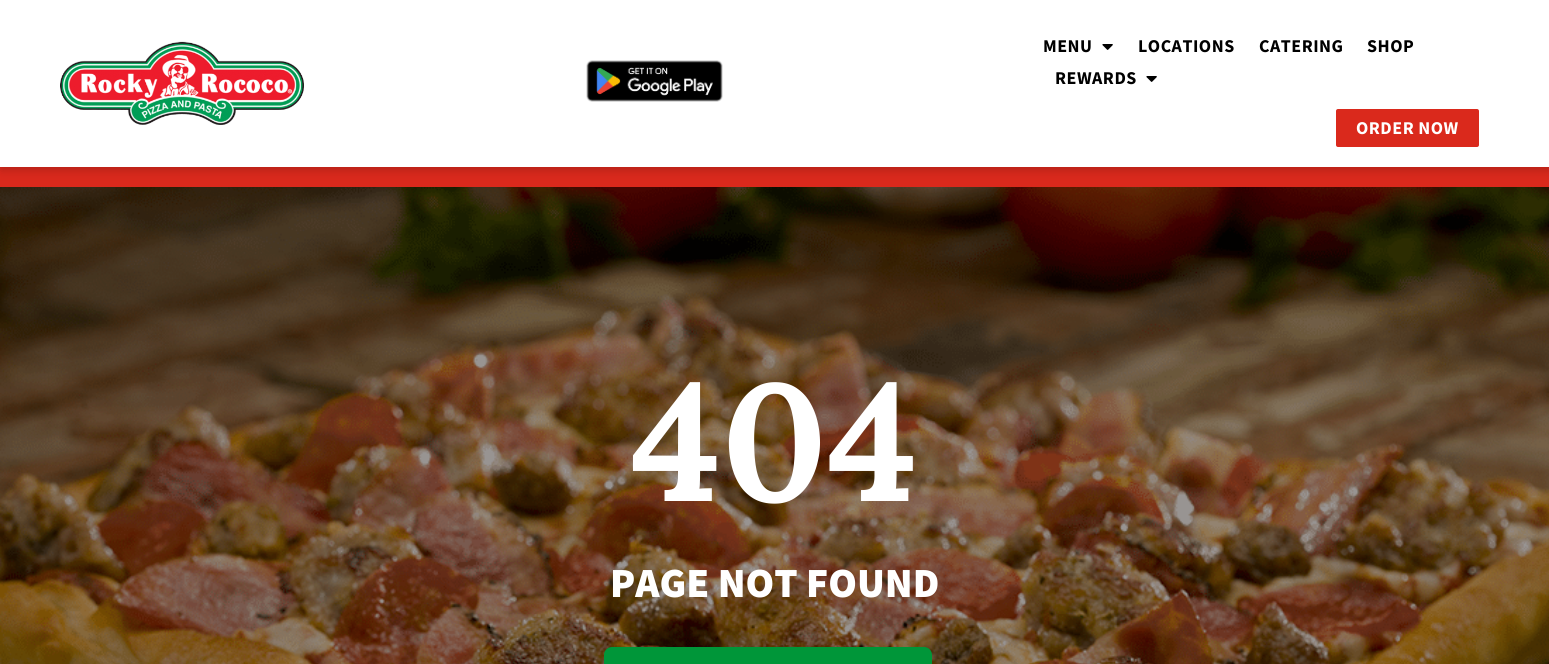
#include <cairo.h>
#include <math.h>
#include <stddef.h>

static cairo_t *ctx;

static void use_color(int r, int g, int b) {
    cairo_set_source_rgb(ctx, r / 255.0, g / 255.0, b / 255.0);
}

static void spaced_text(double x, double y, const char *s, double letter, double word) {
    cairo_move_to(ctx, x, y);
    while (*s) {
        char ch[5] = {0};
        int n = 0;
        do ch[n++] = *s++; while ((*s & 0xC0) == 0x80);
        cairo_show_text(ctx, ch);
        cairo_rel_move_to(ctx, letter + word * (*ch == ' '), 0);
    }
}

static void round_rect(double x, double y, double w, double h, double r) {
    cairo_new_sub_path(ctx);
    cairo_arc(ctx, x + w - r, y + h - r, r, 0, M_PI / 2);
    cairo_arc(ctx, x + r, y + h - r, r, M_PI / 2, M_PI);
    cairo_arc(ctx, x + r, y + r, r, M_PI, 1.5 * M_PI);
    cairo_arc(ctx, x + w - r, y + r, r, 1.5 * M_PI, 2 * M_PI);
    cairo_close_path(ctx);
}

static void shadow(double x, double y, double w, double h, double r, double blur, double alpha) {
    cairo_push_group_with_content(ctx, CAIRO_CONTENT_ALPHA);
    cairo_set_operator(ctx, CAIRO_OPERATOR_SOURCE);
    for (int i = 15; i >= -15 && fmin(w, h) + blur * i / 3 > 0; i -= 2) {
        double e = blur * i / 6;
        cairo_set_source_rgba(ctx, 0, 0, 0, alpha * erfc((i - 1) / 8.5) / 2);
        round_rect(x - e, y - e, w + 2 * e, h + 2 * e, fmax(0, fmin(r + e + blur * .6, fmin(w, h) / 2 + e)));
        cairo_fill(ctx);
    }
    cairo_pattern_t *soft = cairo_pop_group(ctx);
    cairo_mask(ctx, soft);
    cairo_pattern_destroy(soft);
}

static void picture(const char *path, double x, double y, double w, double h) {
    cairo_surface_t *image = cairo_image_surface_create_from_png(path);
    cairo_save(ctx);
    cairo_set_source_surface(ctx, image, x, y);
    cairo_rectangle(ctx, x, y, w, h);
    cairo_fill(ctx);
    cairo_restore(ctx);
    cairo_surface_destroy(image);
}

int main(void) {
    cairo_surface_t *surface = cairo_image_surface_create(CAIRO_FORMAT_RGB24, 1549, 664);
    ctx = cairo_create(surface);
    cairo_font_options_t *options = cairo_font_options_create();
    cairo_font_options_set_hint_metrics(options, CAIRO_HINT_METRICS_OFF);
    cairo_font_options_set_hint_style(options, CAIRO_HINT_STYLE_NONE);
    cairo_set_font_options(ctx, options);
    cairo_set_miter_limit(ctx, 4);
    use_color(218, 41, 28);
    cairo_paint(ctx);
    use_color(0, 0, 0);
    shadow(1, 3, 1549, 167, 0, 5, 0.18);
    use_color(255, 255, 255);
    cairo_rectangle(ctx, 0, 0, 1549, 167);
    cairo_fill(ctx);
    picture("img1.png", 60, 41, 244, 84);
    picture("img2.png", 586, 60, 137, 42);
    cairo_select_font_face(ctx, "Source Sans Pro", CAIRO_FONT_SLANT_NORMAL, CAIRO_FONT_WEIGHT_BOLD);
    cairo_set_font_size(ctx, 18);
    use_color(0, 0, 0);
    spaced_text(1043, 52, "MENU", 0.5, 0);
    picture("img3.png", 1102, 44, 11, 6);
    spaced_text(1138, 52, "LOCATIONS", 0.5, 0);
    spaced_text(1259, 52, "CATERING", 0.5, 0);
    spaced_text(1367, 52, "SHOP", 0.5, 0);
    spaced_text(1055, 84, "REWARDS", 0.5, 0);
    picture("img3.png", 1146, 76, 11, 6);
    use_color(218, 41, 28);
    round_rect(1336, 109, 143, 38, 2);
    cairo_fill(ctx);
    use_color(255, 255, 255);
    spaced_text(1356, 134, "ORDER NOW", 0.5, 0);
    picture("img4.png", 0, 187, 1549, 477);
    cairo_select_font_face(ctx, "Lora", CAIRO_FONT_SLANT_NORMAL, CAIRO_FONT_WEIGHT_BOLD);
    cairo_set_font_size(ctx, 166);
    cairo_move_to(ctx, 631, 501);
    cairo_show_text(ctx, "404");
    cairo_select_font_face(ctx, "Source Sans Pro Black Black", CAIRO_FONT_SLANT_NORMAL, CAIRO_FONT_WEIGHT_NORMAL);
    cairo_set_font_size(ctx, 41.5);
    cairo_move_to(ctx, 610, 597);
    cairo_show_text(ctx, "PAGE NOT FOUND");
    use_color(0, 150, 57);
    round_rect(604, 647, 328, 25, 8);
    cairo_fill(ctx);
    cairo_surface_write_to_png(surface, "result.png");
    cairo_font_options_destroy(options);
    cairo_destroy(ctx);
    cairo_surface_destroy(surface);
    return 0;
}
